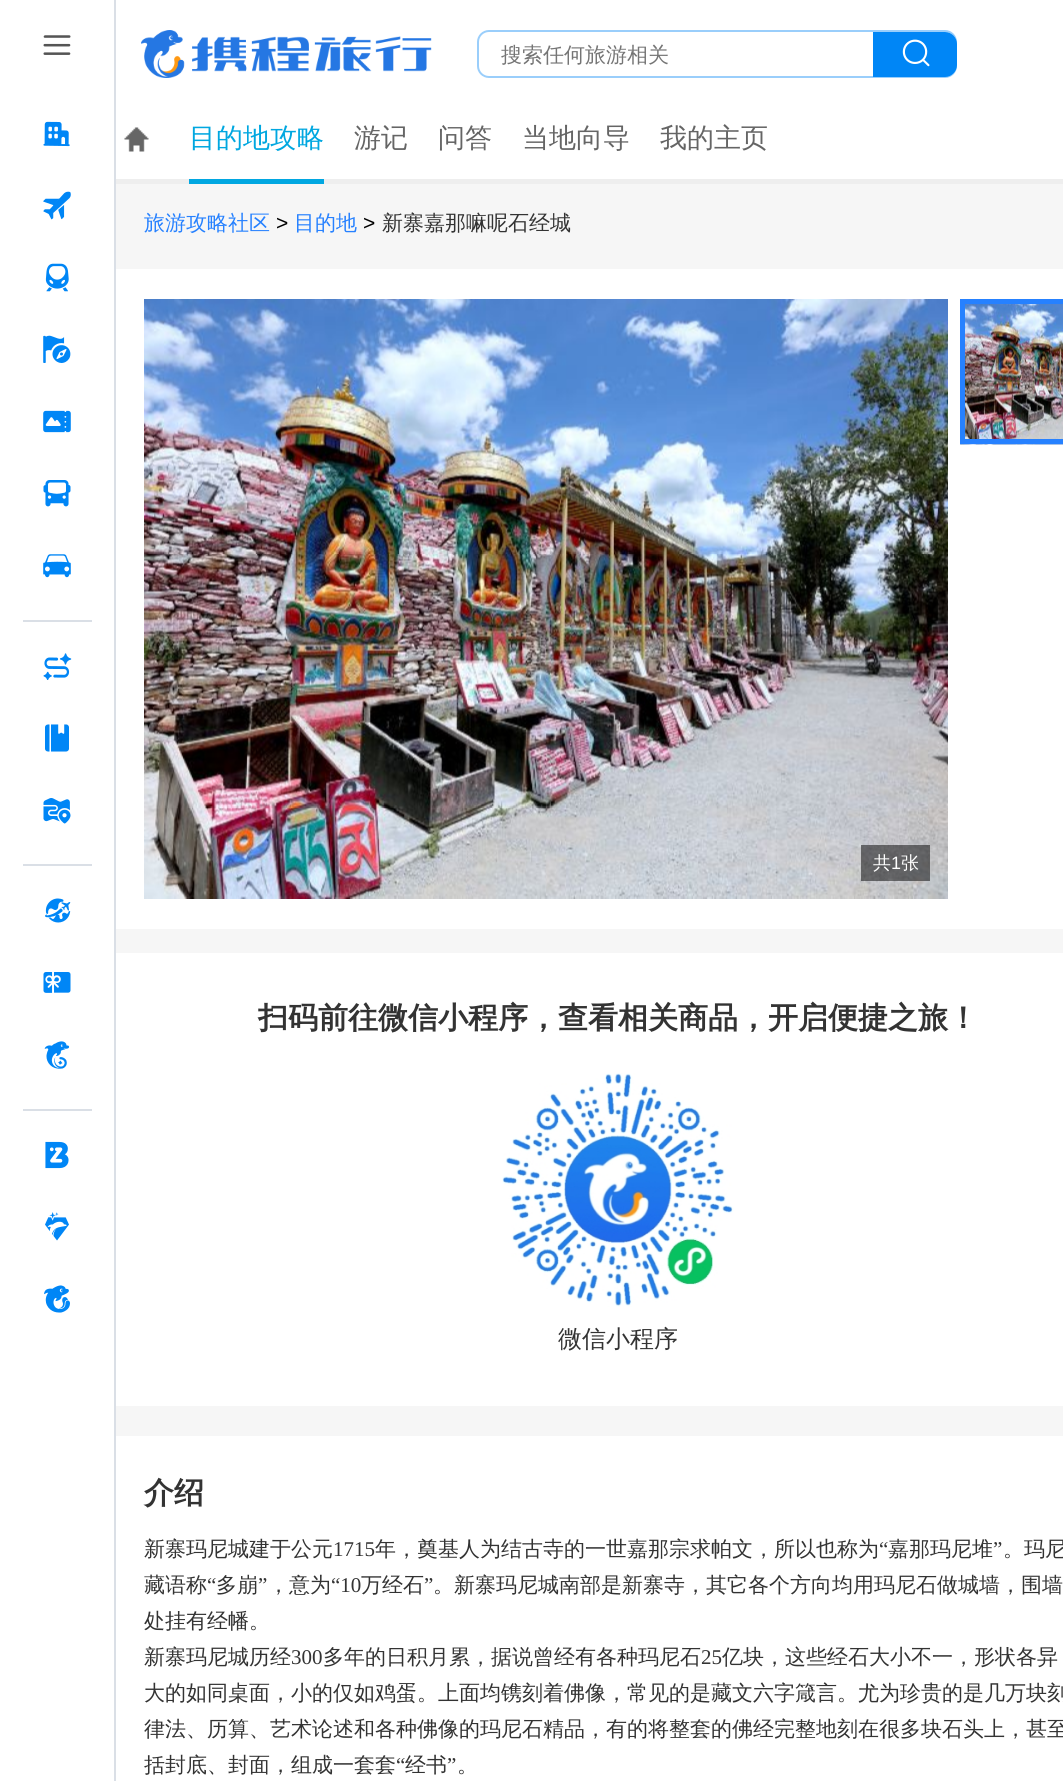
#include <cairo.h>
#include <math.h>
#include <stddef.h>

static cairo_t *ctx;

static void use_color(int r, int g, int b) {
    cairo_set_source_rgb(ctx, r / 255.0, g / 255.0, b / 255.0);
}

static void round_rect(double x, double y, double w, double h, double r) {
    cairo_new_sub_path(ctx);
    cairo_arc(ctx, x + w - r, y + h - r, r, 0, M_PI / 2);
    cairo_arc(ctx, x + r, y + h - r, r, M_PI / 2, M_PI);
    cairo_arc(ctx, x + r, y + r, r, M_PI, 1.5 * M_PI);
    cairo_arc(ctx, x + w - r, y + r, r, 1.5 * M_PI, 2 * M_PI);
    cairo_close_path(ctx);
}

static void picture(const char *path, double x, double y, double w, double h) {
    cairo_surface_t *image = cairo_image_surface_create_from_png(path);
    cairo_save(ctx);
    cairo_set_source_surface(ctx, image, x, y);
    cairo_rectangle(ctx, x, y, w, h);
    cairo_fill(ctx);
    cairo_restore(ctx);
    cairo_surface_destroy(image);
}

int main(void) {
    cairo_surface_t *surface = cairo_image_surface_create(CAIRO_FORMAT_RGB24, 1063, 1781);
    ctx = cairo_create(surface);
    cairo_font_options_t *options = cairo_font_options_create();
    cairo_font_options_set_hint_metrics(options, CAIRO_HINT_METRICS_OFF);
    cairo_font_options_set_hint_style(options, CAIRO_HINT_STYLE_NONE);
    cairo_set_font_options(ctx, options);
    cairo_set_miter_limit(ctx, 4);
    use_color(255, 255, 255);
    cairo_paint(ctx);
    use_color(238, 238, 238);
    cairo_rectangle(ctx, 114, 179, 949, 5);
    cairo_fill(ctx);
    use_color(218, 223, 230);
    cairo_rectangle(ctx, 114, 0, 2, 1781);
    cairo_fill(ctx);
    picture("img1.png", 43, 35, 28, 20);
    picture("img2.png", 43, 121, 27, 26);
    picture("img3.png", 43, 191, 28, 29);
    picture("img4.png", 45, 263, 24, 29);
    picture("img5.png", 43, 335, 28, 28);
    picture("img6.png", 43, 410, 28, 23);
    picture("img7.png", 43, 480, 28, 27);
    picture("img8.png", 43, 554, 28, 24);
    cairo_rectangle(ctx, 23, 620, 69, 2);
    cairo_fill(ctx);
    picture("img9.png", 43, 653, 29, 27);
    picture("img10.png", 45, 724, 24, 28);
    picture("img11.png", 43, 798, 28, 26);
    cairo_rectangle(ctx, 23, 864, 69, 2);
    cairo_fill(ctx);
    picture("img12.png", 45, 898, 26, 25);
    picture("img13.png", 43, 972, 28, 21);
    picture("img14.png", 44, 1041, 26, 28);
    cairo_rectangle(ctx, 23, 1109, 69, 2);
    cairo_fill(ctx);
    picture("img15.png", 45, 1141, 24, 28);
    picture("img16.png", 45, 1212, 24, 29);
    picture("img17.png", 44, 1285, 26, 28);
    picture("img18.png", 141, 30, 291, 48);
    round_rect(478, 31, 478, 46, 11);
    use_color(154, 206, 251);
    cairo_stroke(ctx);
    cairo_select_font_face(ctx, "WenQuanYi Zen Hei Medium", CAIRO_FONT_SLANT_NORMAL, CAIRO_FONT_WEIGHT_NORMAL);
    cairo_set_font_size(ctx, 21);
    use_color(117, 117, 117);
    cairo_move_to(ctx, 501, 62);
    cairo_show_text(ctx, "搜索任何旅游相关");
    use_color(0, 134, 246);
    cairo_new_path(ctx);
    cairo_move_to(ctx, 873, 32);
    cairo_line_to(ctx, 945, 32);
    cairo_curve_to(ctx, 951.5, 32, 957, 37.5, 957, 44);
    cairo_line_to(ctx, 957, 65);
    cairo_curve_to(ctx, 957, 71.5, 951.5, 77, 945, 77);
    cairo_line_to(ctx, 873, 77);
    cairo_close_path(ctx);
    cairo_fill(ctx);
    picture("img19.png", 902, 39, 28, 28);
    picture("img20.png", 124, 127, 25, 25);
    use_color(1, 167, 225);
    cairo_rectangle(ctx, 189, 179, 135, 5);
    cairo_fill(ctx);
    cairo_set_font_size(ctx, 27);
    use_color(0, 167, 224);
    cairo_move_to(ctx, 189, 147);
    cairo_show_text(ctx, "目的地攻略");
    use_color(101, 101, 101);
    cairo_move_to(ctx, 354, 147);
    cairo_show_text(ctx, "游记");
    cairo_move_to(ctx, 438, 147);
    cairo_show_text(ctx, "问答");
    cairo_move_to(ctx, 522, 147);
    cairo_show_text(ctx, "当地向导");
    cairo_move_to(ctx, 660, 147);
    cairo_show_text(ctx, "我的主页");
    use_color(246, 246, 246);
    cairo_rectangle(ctx, 116, 184, 947, 1252);
    cairo_fill(ctx);
    cairo_set_font_size(ctx, 21);
    use_color(38, 129, 255);
    cairo_move_to(ctx, 144, 230);
    cairo_show_text(ctx, "旅游攻略社区");
    cairo_select_font_face(ctx, "Liberation Sans", CAIRO_FONT_SLANT_NORMAL, CAIRO_FONT_WEIGHT_NORMAL);
    use_color(0, 0, 0);
    cairo_move_to(ctx, 276, 230);
    cairo_show_text(ctx, ">");
    cairo_select_font_face(ctx, "WenQuanYi Zen Hei Medium", CAIRO_FONT_SLANT_NORMAL, CAIRO_FONT_WEIGHT_NORMAL);
    use_color(38, 129, 255);
    cairo_move_to(ctx, 294, 230);
    cairo_show_text(ctx, "目的地");
    cairo_select_font_face(ctx, "Liberation Sans", CAIRO_FONT_SLANT_NORMAL, CAIRO_FONT_WEIGHT_NORMAL);
    use_color(0, 0, 0);
    cairo_move_to(ctx, 363, 230);
    cairo_show_text(ctx, ">");
    cairo_select_font_face(ctx, "WenQuanYi Zen Hei Medium", CAIRO_FONT_SLANT_NORMAL, CAIRO_FONT_WEIGHT_NORMAL);
    use_color(51, 51, 51);
    cairo_move_to(ctx, 382, 230);
    cairo_show_text(ctx, "新寨嘉那嘛呢石经城");
    use_color(255, 255, 255);
    cairo_rectangle(ctx, 116, 269, 947, 660);
    cairo_fill(ctx);
    picture("img21.png", 960, 304, 103, 141);
    cairo_rectangle(ctx, 962.5, 301.5, 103, 140);
    use_color(38, 129, 255);
    cairo_set_line_width(ctx, 5);
    cairo_stroke(ctx);
    picture("img22.png", 144, 299, 804, 600);
    cairo_set_source_rgba(ctx, 0, 0, 0, 0.5);
    cairo_rectangle(ctx, 861, 845, 69, 36);
    cairo_fill(ctx);
    cairo_set_font_size(ctx, 18);
    use_color(255, 255, 255);
    cairo_move_to(ctx, 873, 869);
    cairo_show_text(ctx, "共");
    cairo_select_font_face(ctx, "Liberation Sans", CAIRO_FONT_SLANT_NORMAL, CAIRO_FONT_WEIGHT_NORMAL);
    cairo_move_to(ctx, 891, 869);
    cairo_show_text(ctx, "1");
    cairo_select_font_face(ctx, "WenQuanYi Zen Hei Medium", CAIRO_FONT_SLANT_NORMAL, CAIRO_FONT_WEIGHT_NORMAL);
    cairo_move_to(ctx, 901, 869);
    cairo_show_text(ctx, "张");
    cairo_rectangle(ctx, 116, 953, 947, 453);
    cairo_fill(ctx);
    cairo_select_font_face(ctx, "WenQuanYi Zen Hei", CAIRO_FONT_SLANT_NORMAL, CAIRO_FONT_WEIGHT_BOLD);
    cairo_set_font_size(ctx, 30);
    use_color(51, 51, 51);
    cairo_move_to(ctx, 258, 1028);
    cairo_show_text(ctx, "扫码前往微信小程序，查看相关商品，开启便捷之旅！");
    picture("img23.png", 502, 1073, 232, 234);
    cairo_select_font_face(ctx, "WenQuanYi Zen Hei Medium", CAIRO_FONT_SLANT_NORMAL, CAIRO_FONT_WEIGHT_NORMAL);
    cairo_set_font_size(ctx, 24);
    cairo_move_to(ctx, 558, 1347);
    cairo_show_text(ctx, "微信小程序");
    cairo_select_font_face(ctx, "WenQuanYi Zen Hei", CAIRO_FONT_SLANT_NORMAL, CAIRO_FONT_WEIGHT_BOLD);
    cairo_set_font_size(ctx, 30);
    cairo_move_to(ctx, 144, 1503);
    cairo_show_text(ctx, "介绍");
    cairo_select_font_face(ctx, "WenQuanYi Zen Hei Medium", CAIRO_FONT_SLANT_NORMAL, CAIRO_FONT_WEIGHT_NORMAL);
    cairo_set_font_size(ctx, 21);
    cairo_move_to(ctx, 144, 1556);
    cairo_show_text(ctx, "新寨玛尼城建于公元");
    cairo_select_font_face(ctx, "Liberation Serif", CAIRO_FONT_SLANT_NORMAL, CAIRO_FONT_WEIGHT_NORMAL);
    cairo_move_to(ctx, 333, 1556);
    cairo_show_text(ctx, "1715");
    cairo_select_font_face(ctx, "WenQuanYi Zen Hei Medium", CAIRO_FONT_SLANT_NORMAL, CAIRO_FONT_WEIGHT_NORMAL);
    cairo_move_to(ctx, 375, 1556);
    cairo_show_text(ctx, "年，奠基人为结古寺的一世嘉那宗求帕文，所以也称为");
    cairo_select_font_face(ctx, "Liberation Serif", CAIRO_FONT_SLANT_NORMAL, CAIRO_FONT_WEIGHT_NORMAL);
    cairo_move_to(ctx, 879, 1556);
    cairo_show_text(ctx, "“");
    cairo_select_font_face(ctx, "WenQuanYi Zen Hei Medium", CAIRO_FONT_SLANT_NORMAL, CAIRO_FONT_WEIGHT_NORMAL);
    cairo_move_to(ctx, 888, 1556);
    cairo_show_text(ctx, "嘉那玛尼堆");
    cairo_select_font_face(ctx, "Liberation Serif", CAIRO_FONT_SLANT_NORMAL, CAIRO_FONT_WEIGHT_NORMAL);
    cairo_move_to(ctx, 993, 1556);
    cairo_show_text(ctx, "”");
    cairo_select_font_face(ctx, "WenQuanYi Zen Hei Medium", CAIRO_FONT_SLANT_NORMAL, CAIRO_FONT_WEIGHT_NORMAL);
    cairo_move_to(ctx, 1003, 1556);
    cairo_show_text(ctx, "。玛尼");
    cairo_move_to(ctx, 144, 1592);
    cairo_show_text(ctx, "藏语称");
    cairo_select_font_face(ctx, "Liberation Serif", CAIRO_FONT_SLANT_NORMAL, CAIRO_FONT_WEIGHT_NORMAL);
    cairo_move_to(ctx, 207, 1592);
    cairo_show_text(ctx, "“");
    cairo_select_font_face(ctx, "WenQuanYi Zen Hei Medium", CAIRO_FONT_SLANT_NORMAL, CAIRO_FONT_WEIGHT_NORMAL);
    cairo_move_to(ctx, 216, 1592);
    cairo_show_text(ctx, "多崩");
    cairo_select_font_face(ctx, "Liberation Serif", CAIRO_FONT_SLANT_NORMAL, CAIRO_FONT_WEIGHT_NORMAL);
    cairo_move_to(ctx, 258, 1592);
    cairo_show_text(ctx, "”");
    cairo_select_font_face(ctx, "WenQuanYi Zen Hei Medium", CAIRO_FONT_SLANT_NORMAL, CAIRO_FONT_WEIGHT_NORMAL);
    cairo_move_to(ctx, 268, 1592);
    cairo_show_text(ctx, "，意为");
    cairo_select_font_face(ctx, "Liberation Serif", CAIRO_FONT_SLANT_NORMAL, CAIRO_FONT_WEIGHT_NORMAL);
    cairo_move_to(ctx, 331, 1592);
    cairo_show_text(ctx, "“10");
    cairo_select_font_face(ctx, "WenQuanYi Zen Hei Medium", CAIRO_FONT_SLANT_NORMAL, CAIRO_FONT_WEIGHT_NORMAL);
    cairo_move_to(ctx, 361, 1592);
    cairo_show_text(ctx, "万经石");
    cairo_select_font_face(ctx, "Liberation Serif", CAIRO_FONT_SLANT_NORMAL, CAIRO_FONT_WEIGHT_NORMAL);
    cairo_move_to(ctx, 424, 1592);
    cairo_show_text(ctx, "”");
    cairo_select_font_face(ctx, "WenQuanYi Zen Hei Medium", CAIRO_FONT_SLANT_NORMAL, CAIRO_FONT_WEIGHT_NORMAL);
    cairo_move_to(ctx, 433, 1592);
    cairo_show_text(ctx, "。新寨玛尼城南部是新寨寺，其它各个方向均用玛尼石做城墙，围墙");
    cairo_move_to(ctx, 144, 1628);
    cairo_show_text(ctx, "处挂有经幡。");
    cairo_move_to(ctx, 144, 1664);
    cairo_show_text(ctx, "新寨玛尼城历经");
    cairo_select_font_face(ctx, "Liberation Serif", CAIRO_FONT_SLANT_NORMAL, CAIRO_FONT_WEIGHT_NORMAL);
    cairo_move_to(ctx, 291, 1664);
    cairo_show_text(ctx, "300");
    cairo_select_font_face(ctx, "WenQuanYi Zen Hei Medium", CAIRO_FONT_SLANT_NORMAL, CAIRO_FONT_WEIGHT_NORMAL);
    cairo_move_to(ctx, 323, 1664);
    cairo_show_text(ctx, "多年的日积月累，据说曾经有各种玛尼石");
    cairo_select_font_face(ctx, "Liberation Serif", CAIRO_FONT_SLANT_NORMAL, CAIRO_FONT_WEIGHT_NORMAL);
    cairo_move_to(ctx, 701, 1664);
    cairo_show_text(ctx, "25");
    cairo_select_font_face(ctx, "WenQuanYi Zen Hei Medium", CAIRO_FONT_SLANT_NORMAL, CAIRO_FONT_WEIGHT_NORMAL);
    cairo_move_to(ctx, 722, 1664);
    cairo_show_text(ctx, "亿块，这些经石大小不一，形状各异");
    cairo_move_to(ctx, 144, 1700);
    cairo_show_text(ctx, "大的如同桌面，小的仅如鸡蛋。上面均镌刻着佛像，常见的是藏文六字箴言。尤为珍贵的是几万块刻");
    cairo_move_to(ctx, 144, 1736);
    cairo_show_text(ctx, "律法、历算、艺术论述和各种佛像的玛尼石精品，有的将整套的佛经完整地刻在很多块石头上，甚至");
    cairo_move_to(ctx, 144, 1772);
    cairo_show_text(ctx, "括封底、封面，组成一套套");
    cairo_select_font_face(ctx, "Liberation Serif", CAIRO_FONT_SLANT_NORMAL, CAIRO_FONT_WEIGHT_NORMAL);
    cairo_move_to(ctx, 396, 1772);
    cairo_show_text(ctx, "“");
    cairo_select_font_face(ctx, "WenQuanYi Zen Hei Medium", CAIRO_FONT_SLANT_NORMAL, CAIRO_FONT_WEIGHT_NORMAL);
    cairo_move_to(ctx, 405, 1772);
    cairo_show_text(ctx, "经书");
    cairo_select_font_face(ctx, "Liberation Serif", CAIRO_FONT_SLANT_NORMAL, CAIRO_FONT_WEIGHT_NORMAL);
    cairo_move_to(ctx, 447, 1772);
    cairo_show_text(ctx, "”");
    cairo_select_font_face(ctx, "WenQuanYi Zen Hei Medium", CAIRO_FONT_SLANT_NORMAL, CAIRO_FONT_WEIGHT_NORMAL);
    cairo_move_to(ctx, 457, 1772);
    cairo_show_text(ctx, "。");
    cairo_surface_write_to_png(surface, "result.png");
    cairo_font_options_destroy(options);
    cairo_destroy(ctx);
    cairo_surface_destroy(surface);
    return 0;
}
